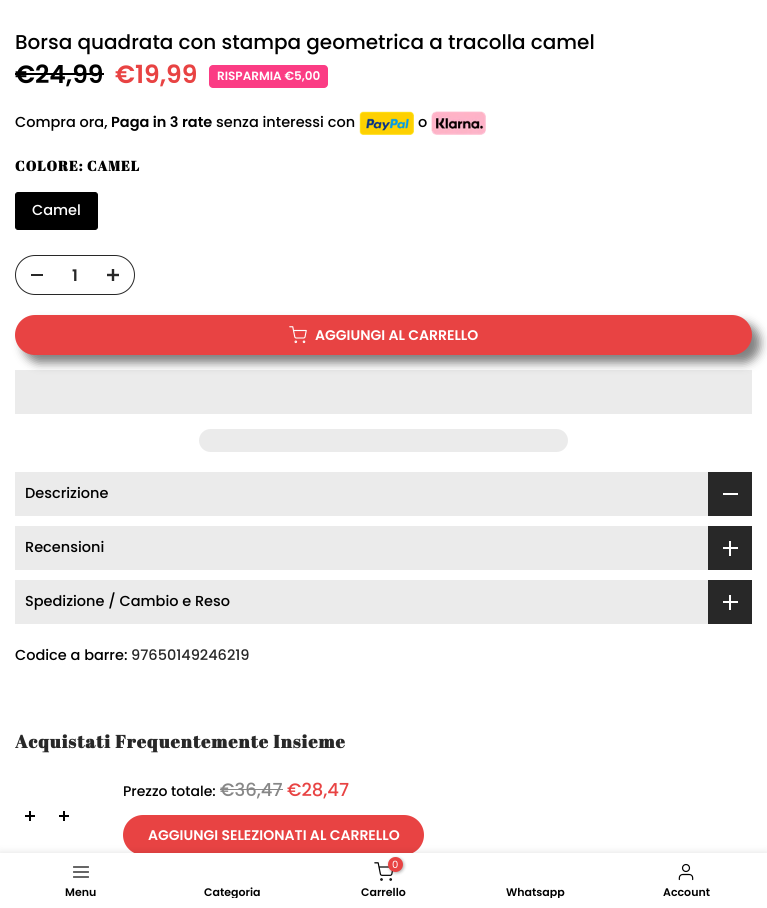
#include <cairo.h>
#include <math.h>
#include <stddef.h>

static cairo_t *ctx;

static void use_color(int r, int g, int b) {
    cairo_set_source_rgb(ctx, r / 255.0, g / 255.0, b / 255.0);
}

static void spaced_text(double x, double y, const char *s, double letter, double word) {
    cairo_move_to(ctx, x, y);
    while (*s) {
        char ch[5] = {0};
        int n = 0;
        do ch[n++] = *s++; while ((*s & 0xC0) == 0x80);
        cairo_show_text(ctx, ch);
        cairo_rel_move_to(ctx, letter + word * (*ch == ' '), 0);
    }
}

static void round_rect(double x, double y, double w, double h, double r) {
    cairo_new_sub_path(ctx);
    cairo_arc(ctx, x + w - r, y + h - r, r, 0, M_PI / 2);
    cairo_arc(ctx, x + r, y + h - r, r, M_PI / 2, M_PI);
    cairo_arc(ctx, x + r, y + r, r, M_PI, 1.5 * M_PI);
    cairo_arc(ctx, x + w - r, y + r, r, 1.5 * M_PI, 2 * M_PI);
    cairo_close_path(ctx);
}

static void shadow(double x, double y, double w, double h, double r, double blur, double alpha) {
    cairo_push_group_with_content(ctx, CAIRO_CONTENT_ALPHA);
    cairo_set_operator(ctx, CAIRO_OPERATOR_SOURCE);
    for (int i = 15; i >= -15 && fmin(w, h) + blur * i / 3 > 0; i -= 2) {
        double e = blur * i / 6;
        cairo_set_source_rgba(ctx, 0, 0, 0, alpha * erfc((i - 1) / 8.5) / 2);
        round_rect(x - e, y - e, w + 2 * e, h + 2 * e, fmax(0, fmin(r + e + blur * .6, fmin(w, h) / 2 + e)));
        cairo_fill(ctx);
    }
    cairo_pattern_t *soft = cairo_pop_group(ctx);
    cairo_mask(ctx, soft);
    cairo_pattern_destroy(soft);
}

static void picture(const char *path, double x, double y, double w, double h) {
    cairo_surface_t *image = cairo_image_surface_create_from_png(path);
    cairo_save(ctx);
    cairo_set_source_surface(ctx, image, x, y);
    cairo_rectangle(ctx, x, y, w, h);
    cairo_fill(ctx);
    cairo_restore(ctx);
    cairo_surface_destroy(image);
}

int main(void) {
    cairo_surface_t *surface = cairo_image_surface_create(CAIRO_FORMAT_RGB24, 767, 908);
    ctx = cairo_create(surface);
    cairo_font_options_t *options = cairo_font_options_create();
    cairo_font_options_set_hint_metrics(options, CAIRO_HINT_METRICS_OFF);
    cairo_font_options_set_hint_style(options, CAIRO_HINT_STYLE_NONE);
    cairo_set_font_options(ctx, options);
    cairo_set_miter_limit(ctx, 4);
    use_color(255, 255, 255);
    cairo_paint(ctx);
    cairo_select_font_face(ctx, "Poppins Medium", CAIRO_FONT_SLANT_NORMAL, CAIRO_FONT_WEIGHT_NORMAL);
    cairo_set_font_size(ctx, 20);
    use_color(0, 0, 0);
    cairo_move_to(ctx, 15, 49);
    cairo_show_text(ctx, "Borsa quadrata con stampa geometrica a tracolla camel");
    cairo_select_font_face(ctx, "Poppins SemiBold", CAIRO_FONT_SLANT_NORMAL, CAIRO_FONT_WEIGHT_NORMAL);
    cairo_set_font_size(ctx, 25);
    cairo_move_to(ctx, 15, 83);
    cairo_show_text(ctx, "€24,99");
    cairo_rectangle(ctx, 15, 73, 89, 2);
    cairo_fill(ctx);
    use_color(232, 67, 67);
    cairo_move_to(ctx, 115, 83);
    cairo_show_text(ctx, "€19,99");
    use_color(251, 60, 132);
    round_rect(209, 65, 119, 23, 4);
    cairo_fill(ctx);
    cairo_set_font_size(ctx, 12);
    use_color(255, 255, 255);
    cairo_move_to(ctx, 217, 80);
    cairo_show_text(ctx, "RISPARMIA €5,00");
    cairo_select_font_face(ctx, "Poppins Medium", CAIRO_FONT_SLANT_NORMAL, CAIRO_FONT_WEIGHT_NORMAL);
    cairo_set_font_size(ctx, 14.5);
    use_color(0, 0, 0);
    cairo_move_to(ctx, 15, 127);
    cairo_show_text(ctx, "Compra ora,");
    cairo_select_font_face(ctx, "Poppins SemiBold", CAIRO_FONT_SLANT_NORMAL, CAIRO_FONT_WEIGHT_NORMAL);
    cairo_move_to(ctx, 111, 127);
    cairo_show_text(ctx, "Paga in 3 rate");
    cairo_select_font_face(ctx, "Poppins Medium", CAIRO_FONT_SLANT_NORMAL, CAIRO_FONT_WEIGHT_NORMAL);
    cairo_move_to(ctx, 216, 127);
    cairo_show_text(ctx, "senza interessi con");
    picture("img1.png", 359, 111, 55, 24);
    cairo_move_to(ctx, 418, 127);
    cairo_show_text(ctx, "o");
    picture("img2.png", 431, 111, 55, 24);
    cairo_select_font_face(ctx, "Abril Fatface", CAIRO_FONT_SLANT_NORMAL, CAIRO_FONT_WEIGHT_BOLD);
    cairo_set_font_size(ctx, 14);
    spaced_text(15, 171, "COLORE: CAMEL", 1, 0);
    round_rect(15.5, 192.5, 82, 37, 2.5);
    cairo_fill_preserve(ctx);
    cairo_set_line_width(ctx, 1);
    cairo_stroke(ctx);
    cairo_select_font_face(ctx, "Poppins Medium", CAIRO_FONT_SLANT_NORMAL, CAIRO_FONT_WEIGHT_NORMAL);
    cairo_set_font_size(ctx, 14.5);
    use_color(255, 255, 255);
    cairo_move_to(ctx, 32, 215);
    cairo_show_text(ctx, "Camel");
    round_rect(15.5, 255.5, 119, 39, 19.5);
    use_color(40, 40, 40);
    cairo_stroke(ctx);
    cairo_rectangle(ctx, 31, 274, 12, 2);
    cairo_fill(ctx);
    cairo_select_font_face(ctx, "Poppins SemiBold", CAIRO_FONT_SLANT_NORMAL, CAIRO_FONT_WEIGHT_NORMAL);
    cairo_set_font_size(ctx, 16);
    cairo_move_to(ctx, 72, 281);
    cairo_show_text(ctx, "1");
    picture("img3.png", 107, 269, 12, 12);
    use_color(235, 235, 235);
    cairo_rectangle(ctx, 15, 370, 737, 44);
    cairo_fill(ctx);
    use_color(128, 128, 128);
    shadow(23, 323, 737, 40, 20, 5, 1);
    use_color(232, 67, 67);
    round_rect(15, 315, 737, 40, 20);
    cairo_fill(ctx);
    picture("img4.png", 289, 326, 18, 18);
    cairo_set_font_size(ctx, 14);
    use_color(255, 255, 255);
    cairo_move_to(ctx, 315, 340);
    cairo_show_text(ctx, "AGGIUNGI AL CARRELLO");
    use_color(235, 235, 235);
    round_rect(199, 429, 369, 23, 11.5);
    cairo_fill(ctx);
    cairo_rectangle(ctx, 15, 472, 693, 44);
    cairo_fill(ctx);
    cairo_select_font_face(ctx, "Poppins Medium", CAIRO_FONT_SLANT_NORMAL, CAIRO_FONT_WEIGHT_NORMAL);
    cairo_set_font_size(ctx, 14.5);
    use_color(0, 0, 0);
    cairo_move_to(ctx, 25, 498);
    cairo_show_text(ctx, "Descrizione");
    use_color(40, 40, 40);
    cairo_rectangle(ctx, 708, 472, 44, 44);
    cairo_fill(ctx);
    use_color(255, 255, 255);
    cairo_rectangle(ctx, 723, 493, 15, 2);
    cairo_fill(ctx);
    use_color(235, 235, 235);
    cairo_rectangle(ctx, 15, 526, 693, 44);
    cairo_fill(ctx);
    use_color(0, 0, 0);
    cairo_move_to(ctx, 25, 552);
    cairo_show_text(ctx, "Recensioni");
    use_color(40, 40, 40);
    cairo_rectangle(ctx, 708, 526, 44, 44);
    cairo_fill(ctx);
    use_color(255, 255, 255);
    cairo_rectangle(ctx, 729, 541, 2, 15);
    cairo_fill(ctx);
    cairo_rectangle(ctx, 723, 547, 15, 2);
    cairo_fill(ctx);
    use_color(235, 235, 235);
    cairo_rectangle(ctx, 15, 580, 693, 44);
    cairo_fill(ctx);
    use_color(0, 0, 0);
    cairo_move_to(ctx, 25, 606);
    cairo_show_text(ctx, "Spedizione / Cambio e Reso");
    use_color(40, 40, 40);
    cairo_rectangle(ctx, 708, 580, 44, 44);
    cairo_fill(ctx);
    use_color(255, 255, 255);
    cairo_rectangle(ctx, 729, 595, 2, 15);
    cairo_fill(ctx);
    cairo_rectangle(ctx, 723, 601, 15, 2);
    cairo_fill(ctx);
    use_color(0, 0, 0);
    cairo_move_to(ctx, 15, 660);
    cairo_show_text(ctx, "Codice a barre:");
    use_color(40, 40, 40);
    cairo_move_to(ctx, 131, 660);
    cairo_show_text(ctx, "97650149246219");
    cairo_select_font_face(ctx, "Abril Fatface", CAIRO_FONT_SLANT_NORMAL, CAIRO_FONT_WEIGHT_BOLD);
    cairo_set_font_size(ctx, 18);
    spaced_text(15, 748, "Acquistati Frequentemente Insieme", 1, 0);
    picture("img5.png", 25, 811, 10, 10);
    picture("img5.png", 59, 811, 10, 10);
    cairo_select_font_face(ctx, "Poppins Medium", CAIRO_FONT_SLANT_NORMAL, CAIRO_FONT_WEIGHT_NORMAL);
    cairo_set_font_size(ctx, 14);
    use_color(0, 0, 0);
    cairo_move_to(ctx, 123, 796);
    cairo_show_text(ctx, "Prezzo totale:");
    cairo_set_font_size(ctx, 18);
    use_color(135, 135, 135);
    cairo_move_to(ctx, 220, 796);
    cairo_show_text(ctx, "€36,47");
    cairo_rectangle(ctx, 220, 789, 63, 1);
    cairo_fill(ctx);
    use_color(232, 67, 67);
    cairo_move_to(ctx, 287, 796);
    cairo_show_text(ctx, "€28,47");
    round_rect(123, 815, 301, 40, 20);
    cairo_fill(ctx);
    cairo_select_font_face(ctx, "Poppins SemiBold", CAIRO_FONT_SLANT_NORMAL, CAIRO_FONT_WEIGHT_NORMAL);
    cairo_set_font_size(ctx, 14);
    use_color(255, 255, 255);
    cairo_move_to(ctx, 148, 840);
    cairo_show_text(ctx, "AGGIUNGI SELEZIONATI AL CARRELLO");
    use_color(0, 0, 0);
    shadow(0, 853, 767, 55, 0, 4.5, 0.12);
    use_color(255, 255, 255);
    cairo_rectangle(ctx, 0, 853, 767, 55);
    cairo_fill(ctx);
    picture("img6.png", 73, 866, 16, 12);
    cairo_set_font_size(ctx, 11);
    use_color(0, 0, 0);
    cairo_move_to(ctx, 65, 896);
    cairo_show_text(ctx, "Menu");
    cairo_save(ctx);
    cairo_rectangle(ctx, 166, 887, 132, 11);
    cairo_clip(ctx);
    cairo_move_to(ctx, 204, 896);
    cairo_show_text(ctx, "Categoria");
    cairo_restore(ctx);
    picture("img7.png", 374, 862, 19, 19);
    use_color(0, 0, 0);
    shadow(389, 858, 15, 15, 7.5, 1.5, 0.3);
    use_color(232, 67, 67);
    cairo_arc(ctx, 395.5, 864.5, 7.5, 0, 2 * M_PI);
    cairo_fill(ctx);
    cairo_select_font_face(ctx, "Poppins", CAIRO_FONT_SLANT_NORMAL, CAIRO_FONT_WEIGHT_NORMAL);
    cairo_set_font_size(ctx, 10);
    use_color(255, 255, 255);
    cairo_move_to(ctx, 392, 868);
    cairo_show_text(ctx, "0");
    cairo_select_font_face(ctx, "Poppins SemiBold", CAIRO_FONT_SLANT_NORMAL, CAIRO_FONT_WEIGHT_NORMAL);
    cairo_set_font_size(ctx, 11);
    use_color(0, 0, 0);
    cairo_move_to(ctx, 361, 896);
    cairo_show_text(ctx, "Carrello");
    cairo_save(ctx);
    cairo_rectangle(ctx, 469, 887, 132, 11);
    cairo_clip(ctx);
    cairo_move_to(ctx, 506, 896);
    cairo_show_text(ctx, "Whatsapp");
    cairo_restore(ctx);
    picture("img8.png", 678, 863, 16, 18);
    cairo_move_to(ctx, 663, 896);
    cairo_show_text(ctx, "Account");
    cairo_surface_write_to_png(surface, "result.png");
    cairo_font_options_destroy(options);
    cairo_destroy(ctx);
    cairo_surface_destroy(surface);
    return 0;
}
